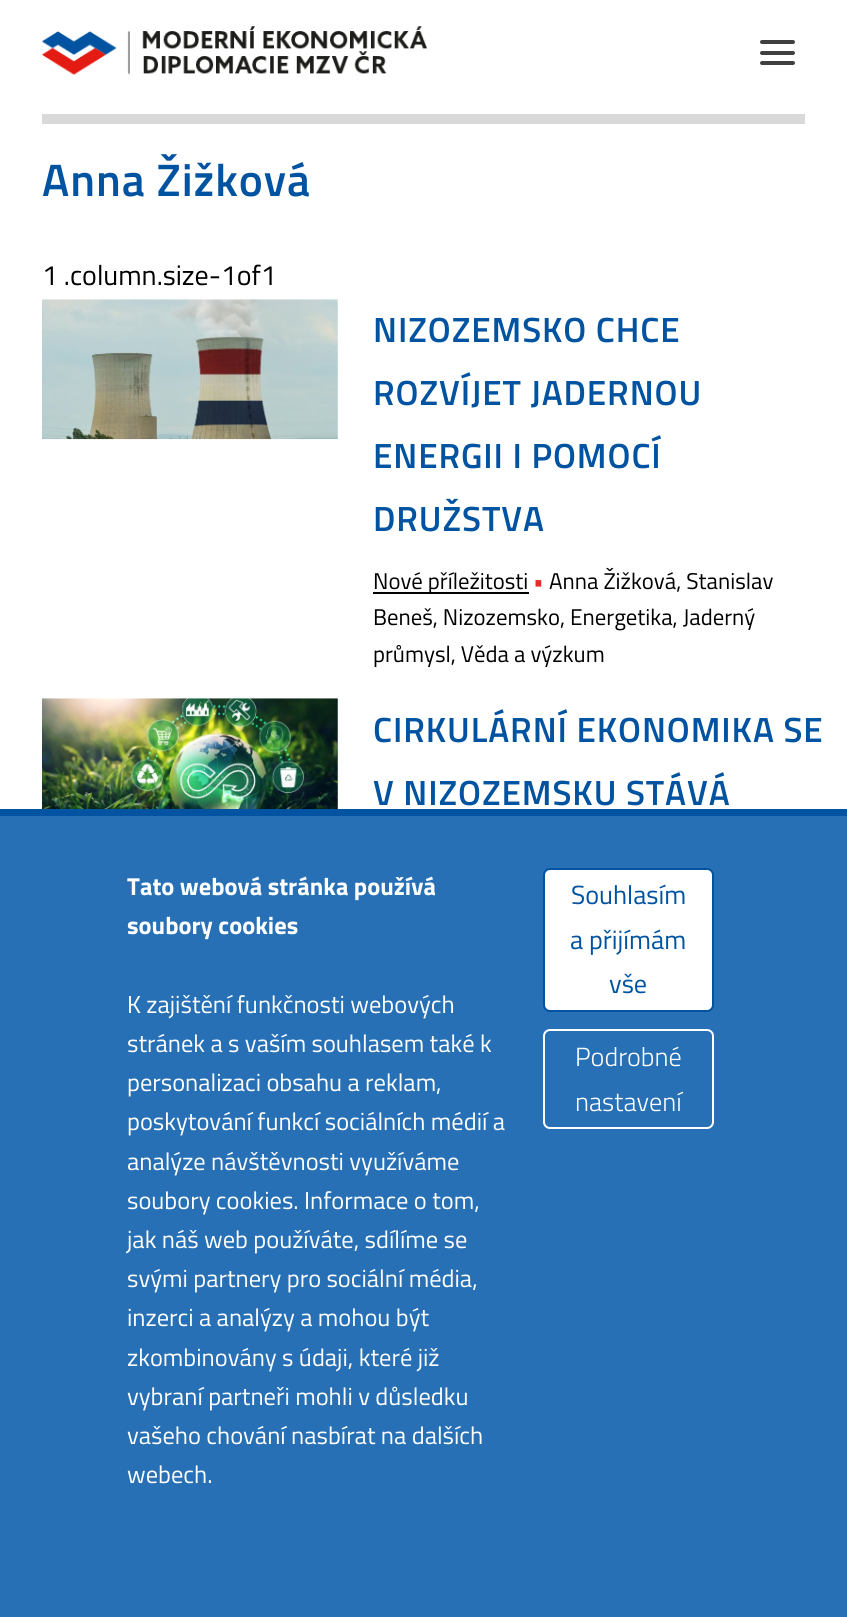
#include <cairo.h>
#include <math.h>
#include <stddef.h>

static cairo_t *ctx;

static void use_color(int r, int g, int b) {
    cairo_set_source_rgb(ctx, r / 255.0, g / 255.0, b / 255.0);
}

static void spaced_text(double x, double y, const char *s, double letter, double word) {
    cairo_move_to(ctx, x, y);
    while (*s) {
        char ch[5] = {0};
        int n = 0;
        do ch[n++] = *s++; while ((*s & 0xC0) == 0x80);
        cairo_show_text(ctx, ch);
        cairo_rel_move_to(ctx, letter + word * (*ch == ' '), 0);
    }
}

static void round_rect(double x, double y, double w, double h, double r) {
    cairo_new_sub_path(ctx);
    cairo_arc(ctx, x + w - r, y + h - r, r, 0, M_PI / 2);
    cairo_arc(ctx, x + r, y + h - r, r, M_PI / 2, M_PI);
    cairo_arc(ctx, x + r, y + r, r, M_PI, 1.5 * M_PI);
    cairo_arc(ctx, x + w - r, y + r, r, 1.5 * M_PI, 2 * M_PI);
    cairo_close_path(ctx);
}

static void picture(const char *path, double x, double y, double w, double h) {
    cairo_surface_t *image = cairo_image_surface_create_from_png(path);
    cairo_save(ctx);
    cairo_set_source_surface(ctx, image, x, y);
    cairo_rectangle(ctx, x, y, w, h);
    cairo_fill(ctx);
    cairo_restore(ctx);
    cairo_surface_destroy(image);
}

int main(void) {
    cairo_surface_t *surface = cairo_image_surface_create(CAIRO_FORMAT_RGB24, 847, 1617);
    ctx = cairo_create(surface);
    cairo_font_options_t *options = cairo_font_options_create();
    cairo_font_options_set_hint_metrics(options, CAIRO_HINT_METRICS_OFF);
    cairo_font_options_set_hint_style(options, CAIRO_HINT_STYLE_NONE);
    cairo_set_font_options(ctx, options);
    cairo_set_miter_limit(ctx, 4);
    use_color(255, 255, 255);
    cairo_paint(ctx);
    use_color(217, 217, 217);
    cairo_rectangle(ctx, 42, 114, 763, 10);
    cairo_fill(ctx);
    picture("img1.png", 42, 26, 385, 49);
    use_color(64, 64, 64);
    round_rect(760, 40, 35, 4, 2);
    cairo_fill(ctx);
    round_rect(760, 51, 35, 4, 2);
    cairo_fill(ctx);
    round_rect(760, 61, 35, 4, 2);
    cairo_fill(ctx);
    cairo_select_font_face(ctx, "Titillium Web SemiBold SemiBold", CAIRO_FONT_SLANT_NORMAL, CAIRO_FONT_WEIGHT_NORMAL);
    cairo_set_font_size(ctx, 45.5);
    use_color(0, 83, 161);
    spaced_text(42, 196, "Anna Žižková", 0.9, 0);
    cairo_select_font_face(ctx, "Titillium Web", CAIRO_FONT_SLANT_NORMAL, CAIRO_FONT_WEIGHT_NORMAL);
    cairo_set_font_size(ctx, 28);
    use_color(0, 0, 0);
    cairo_move_to(ctx, 42, 285);
    cairo_show_text(ctx, "1 .column.size-1of1");
    picture("img2.png", 42, 299, 296, 141);
    cairo_select_font_face(ctx, "Titillium Web SemiBold SemiBold", CAIRO_FONT_SLANT_NORMAL, CAIRO_FONT_WEIGHT_NORMAL);
    cairo_set_font_size(ctx, 35);
    use_color(0, 83, 161);
    spaced_text(373, 342, "NIZOZEMSKO CHCE", 0.9, 0);
    spaced_text(373, 405, "ROZVÍJET JADERNOU", 0.9, 0);
    spaced_text(373, 468, "ENERGII I POMOCÍ", 0.9, 0);
    spaced_text(373, 531, "DRUŽSTVA", 0.9, 0);
    use_color(0, 0, 0);
    cairo_rectangle(ctx, 373, 592, 156, 2);
    cairo_fill(ctx);
    cairo_select_font_face(ctx, "Titillium Web", CAIRO_FONT_SLANT_NORMAL, CAIRO_FONT_WEIGHT_NORMAL);
    cairo_set_font_size(ctx, 22.75);
    cairo_move_to(ctx, 373, 589);
    cairo_show_text(ctx, "Nové příležitosti");
    use_color(230, 43, 39);
    cairo_move_to(ctx, 533, 589);
    cairo_show_text(ctx, "•");
    use_color(0, 0, 0);
    cairo_move_to(ctx, 549, 589);
    cairo_show_text(ctx, "Anna Žižková, Stanislav");
    cairo_move_to(ctx, 373, 625);
    cairo_show_text(ctx, "Beneš, Nizozemsko, Energetika, Jaderný");
    cairo_move_to(ctx, 373, 662);
    cairo_show_text(ctx, "průmysl, Věda a výzkum");
    picture("img3.png", 42, 698, 296, 111);
    cairo_select_font_face(ctx, "Titillium Web SemiBold SemiBold", CAIRO_FONT_SLANT_NORMAL, CAIRO_FONT_WEIGHT_NORMAL);
    cairo_set_font_size(ctx, 35);
    use_color(0, 83, 161);
    spaced_text(373, 742, "CIRKULÁRNÍ EKONOMIKA SE", 0.9, 0);
    spaced_text(373, 805, "V NIZOZEMSKU STÁVÁ", 0.9, 0);
    use_color(39, 112, 181);
    cairo_rectangle(ctx, 0, 816, 847, 801);
    cairo_fill(ctx);
    use_color(2, 84, 162);
    cairo_rectangle(ctx, 0, 809, 847, 7);
    cairo_fill(ctx);
    cairo_select_font_face(ctx, "Titillium Web", CAIRO_FONT_SLANT_NORMAL, CAIRO_FONT_WEIGHT_BOLD);
    cairo_set_font_size(ctx, 24.5);
    use_color(255, 255, 255);
    cairo_move_to(ctx, 127, 895);
    cairo_show_text(ctx, "Tato webová stránka používá");
    cairo_move_to(ctx, 127, 934);
    cairo_show_text(ctx, "soubory cookies");
    cairo_select_font_face(ctx, "Titillium Web", CAIRO_FONT_SLANT_NORMAL, CAIRO_FONT_WEIGHT_NORMAL);
    cairo_move_to(ctx, 127, 1013);
    cairo_show_text(ctx, "K zajištění funkčnosti webových");
    cairo_move_to(ctx, 127, 1052);
    cairo_show_text(ctx, "stránek a s vaším souhlasem také k");
    cairo_move_to(ctx, 127, 1091);
    cairo_show_text(ctx, "personalizaci obsahu a reklam,");
    cairo_move_to(ctx, 127, 1130);
    cairo_show_text(ctx, "poskytování funkcí sociálních médií a");
    cairo_move_to(ctx, 127, 1170);
    cairo_show_text(ctx, "analýze návštěvnosti využíváme");
    cairo_move_to(ctx, 127, 1209);
    cairo_show_text(ctx, "soubory cookies. Informace o tom,");
    cairo_move_to(ctx, 127, 1248);
    cairo_show_text(ctx, "jak náš web používáte, sdílíme se");
    cairo_move_to(ctx, 127, 1287);
    cairo_show_text(ctx, "svými partnery pro sociální média,");
    cairo_move_to(ctx, 127, 1326);
    cairo_show_text(ctx, "inzerci a analýzy a mohou být");
    cairo_move_to(ctx, 127, 1366);
    cairo_show_text(ctx, "zkombinovány s údaji, které již");
    cairo_move_to(ctx, 127, 1405);
    cairo_show_text(ctx, "vybraní partneři mohli v důsledku");
    cairo_move_to(ctx, 127, 1444);
    cairo_show_text(ctx, "vašeho chování nasbírat na dalších");
    cairo_move_to(ctx, 127, 1483);
    cairo_show_text(ctx, "webech.");
    round_rect(544, 869, 169, 142, 6);
    cairo_fill_preserve(ctx);
    use_color(0, 83, 161);
    cairo_stroke(ctx);
    cairo_set_font_size(ctx, 26.25);
    cairo_move_to(ctx, 571, 904);
    cairo_show_text(ctx, "Souhlasím");
    cairo_move_to(ctx, 570, 949);
    cairo_show_text(ctx, "a přijímám");
    cairo_move_to(ctx, 609, 993);
    cairo_show_text(ctx, "vše");
    round_rect(544, 1030, 169, 98, 6);
    use_color(255, 255, 255);
    cairo_stroke(ctx);
    cairo_select_font_face(ctx, "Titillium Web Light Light", CAIRO_FONT_SLANT_NORMAL, CAIRO_FONT_WEIGHT_NORMAL);
    cairo_move_to(ctx, 575, 1066);
    cairo_show_text(ctx, "Podrobné");
    cairo_move_to(ctx, 575, 1111);
    cairo_show_text(ctx, "nastavení");
    cairo_surface_write_to_png(surface, "result.png");
    cairo_font_options_destroy(options);
    cairo_destroy(ctx);
    cairo_surface_destroy(surface);
    return 0;
}
